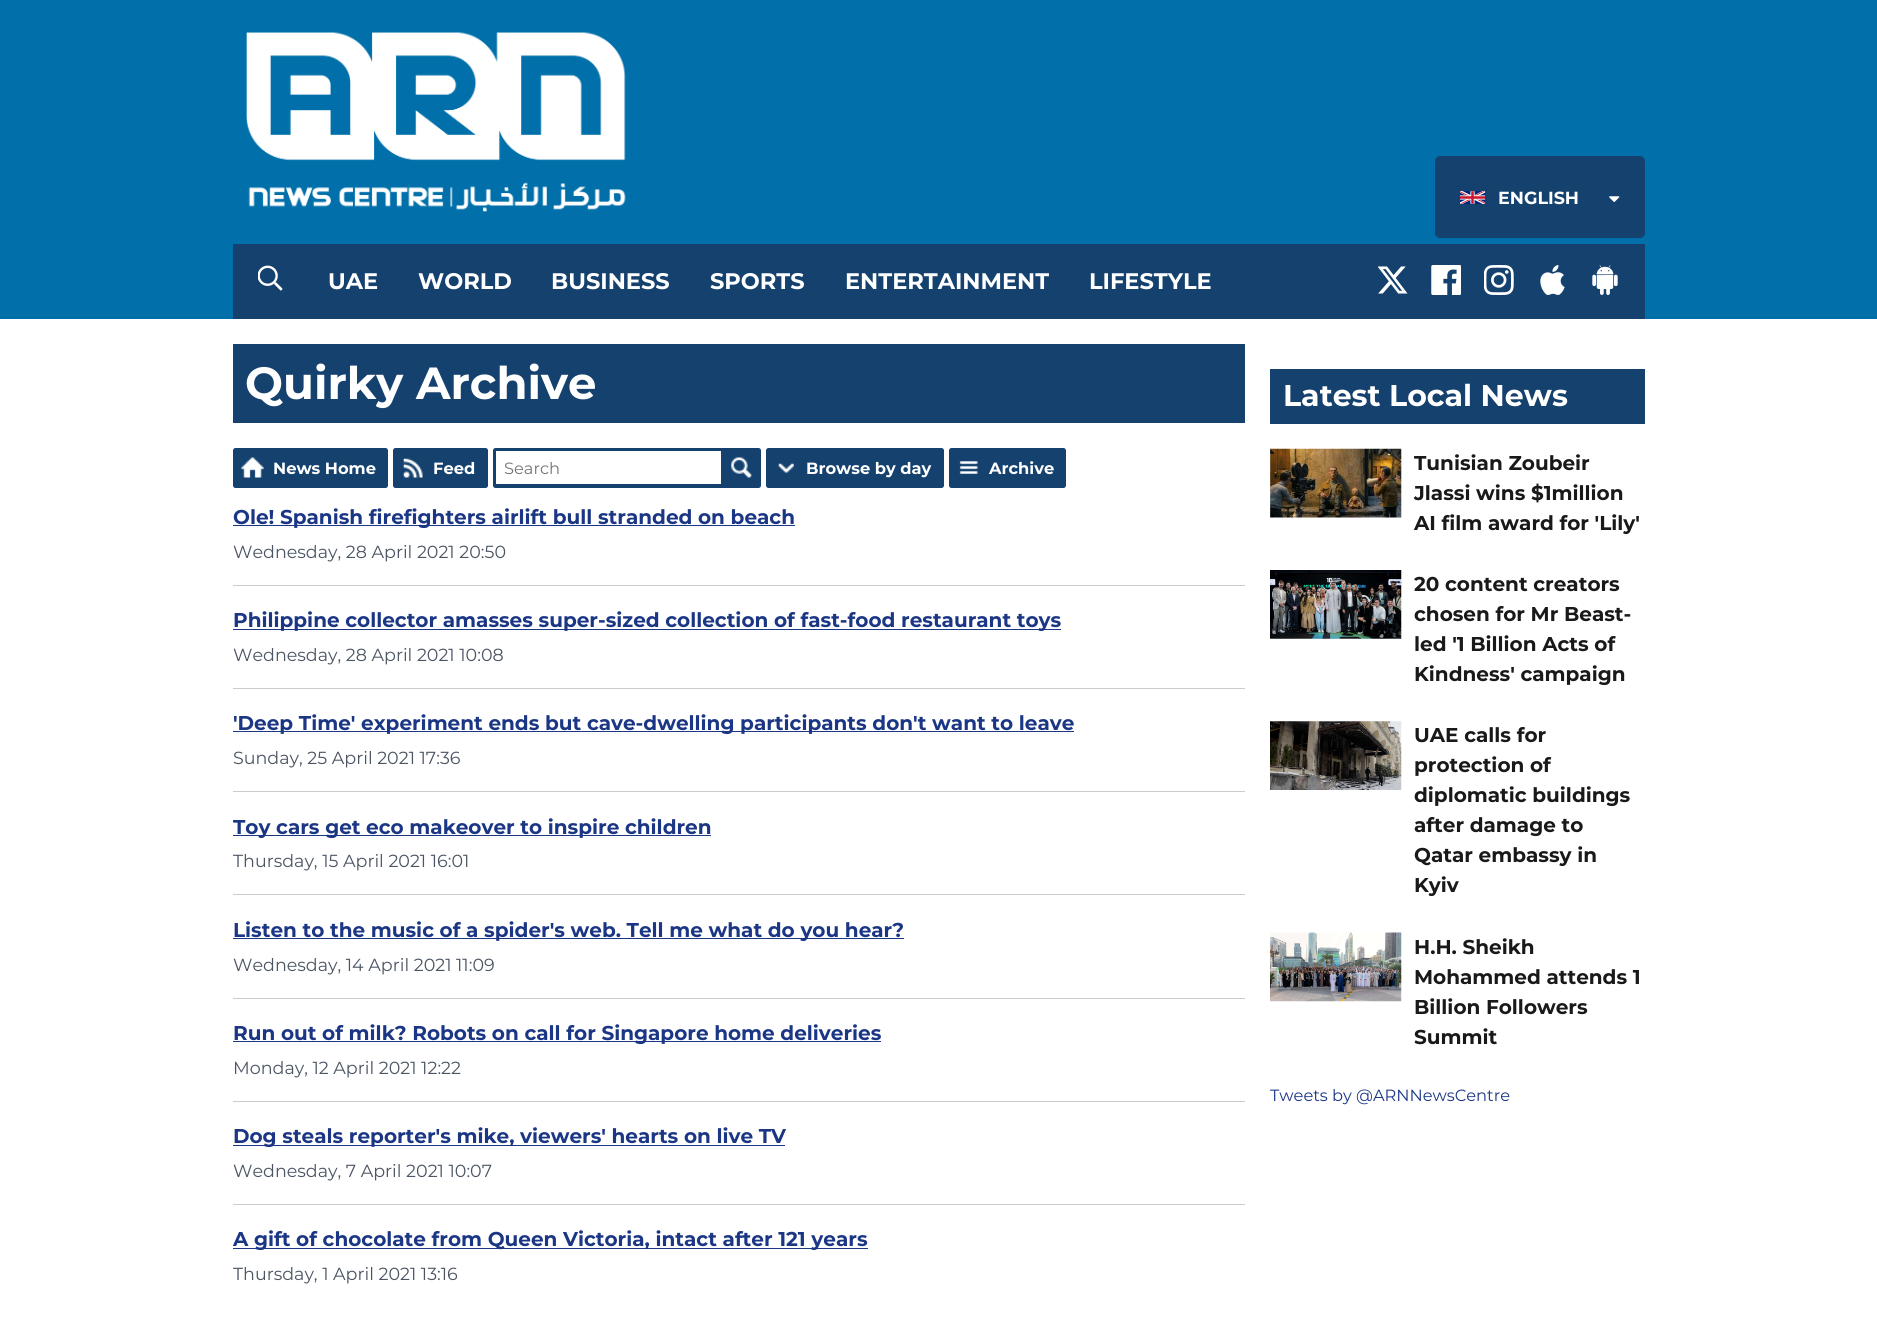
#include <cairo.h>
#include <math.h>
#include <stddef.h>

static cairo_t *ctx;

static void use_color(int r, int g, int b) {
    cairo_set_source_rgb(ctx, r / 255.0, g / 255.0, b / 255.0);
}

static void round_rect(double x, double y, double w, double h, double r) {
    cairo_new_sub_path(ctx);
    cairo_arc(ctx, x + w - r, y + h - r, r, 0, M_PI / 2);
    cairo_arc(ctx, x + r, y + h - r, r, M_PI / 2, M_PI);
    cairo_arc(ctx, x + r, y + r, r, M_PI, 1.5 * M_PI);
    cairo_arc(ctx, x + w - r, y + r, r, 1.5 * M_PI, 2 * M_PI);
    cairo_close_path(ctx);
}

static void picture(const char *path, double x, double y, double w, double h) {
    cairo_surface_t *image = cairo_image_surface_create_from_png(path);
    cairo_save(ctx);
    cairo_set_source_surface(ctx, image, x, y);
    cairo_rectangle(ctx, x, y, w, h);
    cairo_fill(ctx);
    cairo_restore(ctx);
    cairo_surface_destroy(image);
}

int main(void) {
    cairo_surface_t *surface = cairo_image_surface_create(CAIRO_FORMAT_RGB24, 1877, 1317);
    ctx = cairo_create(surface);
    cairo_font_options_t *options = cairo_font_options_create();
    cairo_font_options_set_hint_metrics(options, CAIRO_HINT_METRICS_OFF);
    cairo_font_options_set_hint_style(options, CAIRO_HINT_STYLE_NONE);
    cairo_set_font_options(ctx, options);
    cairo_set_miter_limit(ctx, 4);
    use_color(255, 255, 255);
    cairo_paint(ctx);
    use_color(1, 112, 170);
    cairo_rectangle(ctx, 0, 0, 1877, 319);
    cairo_fill(ctx);
    picture("img1.png", 246, 32, 380, 180);
    use_color(21, 65, 110);
    round_rect(1435, 156, 210, 82, 5);
    cairo_fill(ctx);
    picture("img2.png", 1460, 191, 25, 13);
    cairo_select_font_face(ctx, "Montserrat", CAIRO_FONT_SLANT_NORMAL, CAIRO_FONT_WEIGHT_BOLD);
    cairo_set_font_size(ctx, 17.5);
    use_color(255, 255, 255);
    cairo_move_to(ctx, 1498, 204);
    cairo_show_text(ctx, "ENGLISH");
    picture("img3.png", 1609, 196, 11, 6);
    use_color(21, 65, 110);
    cairo_rectangle(ctx, 233, 244, 1412, 75);
    cairo_fill(ctx);
    picture("img4.png", 258, 265, 25, 26);
    cairo_set_font_size(ctx, 22.5);
    use_color(255, 255, 255);
    cairo_move_to(ctx, 328, 289);
    cairo_show_text(ctx, "UAE");
    cairo_move_to(ctx, 418, 289);
    cairo_show_text(ctx, "WORLD");
    cairo_move_to(ctx, 551, 289);
    cairo_show_text(ctx, "BUSINESS");
    cairo_move_to(ctx, 710, 289);
    cairo_show_text(ctx, "SPORTS");
    cairo_move_to(ctx, 845, 289);
    cairo_show_text(ctx, "ENTERTAINMENT");
    cairo_move_to(ctx, 1089, 289);
    cairo_show_text(ctx, "LIFESTYLE");
    picture("img5.png", 1378, 266, 30, 28);
    picture("img6.png", 1431, 265, 30, 30);
    picture("img7.png", 1484, 265, 30, 30);
    picture("img8.png", 1540, 265, 25, 30);
    picture("img9.png", 1592, 265, 26, 30);
    use_color(21, 65, 110);
    cairo_rectangle(ctx, 233, 344, 1012, 79);
    cairo_fill(ctx);
    cairo_set_font_size(ctx, 45);
    use_color(255, 255, 255);
    cairo_move_to(ctx, 245, 399);
    cairo_show_text(ctx, "Quirky Archive");
    use_color(21, 65, 110);
    round_rect(233, 448, 155, 40, 2.5);
    cairo_fill(ctx);
    picture("img10.png", 241, 457, 23, 21);
    cairo_set_font_size(ctx, 16.25);
    use_color(255, 255, 255);
    cairo_move_to(ctx, 273, 474);
    cairo_show_text(ctx, "News Home");
    use_color(21, 65, 110);
    round_rect(393, 448, 95, 40, 2.5);
    cairo_fill(ctx);
    picture("img11.png", 403, 458, 20, 20);
    use_color(255, 255, 255);
    cairo_move_to(ctx, 433, 474);
    cairo_show_text(ctx, "Feed");
    use_color(21, 65, 110);
    round_rect(493, 448, 268, 40, 2.5);
    cairo_fill(ctx);
    use_color(255, 255, 255);
    cairo_rectangle(ctx, 496, 451, 225, 33);
    cairo_fill(ctx);
    cairo_select_font_face(ctx, "Montserrat", CAIRO_FONT_SLANT_NORMAL, CAIRO_FONT_WEIGHT_NORMAL);
    use_color(117, 117, 117);
    cairo_move_to(ctx, 504, 474);
    cairo_show_text(ctx, "Search");
    picture("img12.png", 731, 457, 21, 21);
    use_color(21, 65, 110);
    round_rect(766, 448, 178, 40, 2.5);
    cairo_fill(ctx);
    picture("img13.png", 778, 463, 16, 10);
    cairo_select_font_face(ctx, "Montserrat", CAIRO_FONT_SLANT_NORMAL, CAIRO_FONT_WEIGHT_BOLD);
    use_color(255, 255, 255);
    cairo_move_to(ctx, 806, 474);
    cairo_show_text(ctx, "Browse by day");
    use_color(21, 65, 110);
    round_rect(949, 448, 117, 40, 2.5);
    cairo_fill(ctx);
    picture("img14.png", 959, 461, 19, 13);
    use_color(255, 255, 255);
    cairo_move_to(ctx, 989, 474);
    cairo_show_text(ctx, "Archive");
    use_color(27, 54, 133);
    cairo_rectangle(ctx, 233, 525, 562, 1);
    cairo_fill(ctx);
    cairo_set_font_size(ctx, 20);
    cairo_move_to(ctx, 233, 524);
    cairo_show_text(ctx, "Ole! Spanish firefighters airlift bull stranded on beach");
    cairo_select_font_face(ctx, "Montserrat", CAIRO_FONT_SLANT_NORMAL, CAIRO_FONT_WEIGHT_NORMAL);
    cairo_set_font_size(ctx, 17.5);
    use_color(75, 85, 99);
    cairo_move_to(ctx, 233, 558);
    cairo_show_text(ctx, "Wednesday, 28 April 2021 20:50");
    use_color(204, 204, 204);
    cairo_rectangle(ctx, 233, 585, 1012, 1);
    cairo_fill(ctx);
    use_color(27, 54, 133);
    cairo_rectangle(ctx, 233, 629, 828, 1);
    cairo_fill(ctx);
    cairo_select_font_face(ctx, "Montserrat", CAIRO_FONT_SLANT_NORMAL, CAIRO_FONT_WEIGHT_BOLD);
    cairo_set_font_size(ctx, 20);
    cairo_move_to(ctx, 233, 627);
    cairo_show_text(ctx, "Philippine collector amasses super-sized collection of fast-food restaurant toys");
    cairo_select_font_face(ctx, "Montserrat", CAIRO_FONT_SLANT_NORMAL, CAIRO_FONT_WEIGHT_NORMAL);
    cairo_set_font_size(ctx, 17.5);
    use_color(75, 85, 99);
    cairo_move_to(ctx, 233, 661);
    cairo_show_text(ctx, "Wednesday, 28 April 2021 10:08");
    use_color(204, 204, 204);
    cairo_rectangle(ctx, 233, 688, 1012, 1);
    cairo_fill(ctx);
    use_color(27, 54, 133);
    cairo_rectangle(ctx, 233, 731, 841, 1);
    cairo_fill(ctx);
    cairo_select_font_face(ctx, "Montserrat", CAIRO_FONT_SLANT_NORMAL, CAIRO_FONT_WEIGHT_BOLD);
    cairo_set_font_size(ctx, 20);
    cairo_move_to(ctx, 233, 730);
    cairo_show_text(ctx, "'Deep Time' experiment ends but cave-dwelling participants don't want to leave");
    cairo_select_font_face(ctx, "Montserrat", CAIRO_FONT_SLANT_NORMAL, CAIRO_FONT_WEIGHT_NORMAL);
    cairo_set_font_size(ctx, 17.5);
    use_color(75, 85, 99);
    cairo_move_to(ctx, 233, 764);
    cairo_show_text(ctx, "Sunday, 25 April 2021 17:36");
    use_color(204, 204, 204);
    cairo_rectangle(ctx, 233, 791, 1012, 1);
    cairo_fill(ctx);
    use_color(27, 54, 133);
    cairo_rectangle(ctx, 233, 835, 478, 1);
    cairo_fill(ctx);
    cairo_save(ctx);
    cairo_rectangle(ctx, 233, 813, 1012, 61);
    cairo_clip(ctx);
    cairo_select_font_face(ctx, "Montserrat", CAIRO_FONT_SLANT_NORMAL, CAIRO_FONT_WEIGHT_BOLD);
    cairo_set_font_size(ctx, 20);
    cairo_move_to(ctx, 233, 834);
    cairo_show_text(ctx, "Toy cars get eco makeover to inspire children");
    cairo_restore(ctx);
    use_color(75, 85, 99);
    cairo_move_to(ctx, 233, 867);
    cairo_show_text(ctx, "Thursday, 15 April 2021 16:01");
    use_color(204, 204, 204);
    cairo_rectangle(ctx, 233, 894, 1012, 1);
    cairo_fill(ctx);
    use_color(27, 54, 133);
    cairo_rectangle(ctx, 233, 938, 671, 1);
    cairo_fill(ctx);
    cairo_select_font_face(ctx, "Montserrat", CAIRO_FONT_SLANT_NORMAL, CAIRO_FONT_WEIGHT_BOLD);
    cairo_set_font_size(ctx, 20);
    cairo_move_to(ctx, 233, 937);
    cairo_show_text(ctx, "Listen to the music of a spider's web. Tell me what do you hear?");
    cairo_select_font_face(ctx, "Montserrat", CAIRO_FONT_SLANT_NORMAL, CAIRO_FONT_WEIGHT_NORMAL);
    cairo_set_font_size(ctx, 17.5);
    use_color(75, 85, 99);
    cairo_move_to(ctx, 233, 971);
    cairo_show_text(ctx, "Wednesday, 14 April 2021 11:09");
    use_color(204, 204, 204);
    cairo_rectangle(ctx, 233, 998, 1012, 1);
    cairo_fill(ctx);
    use_color(27, 54, 133);
    cairo_rectangle(ctx, 233, 1041, 648, 1);
    cairo_fill(ctx);
    cairo_select_font_face(ctx, "Montserrat", CAIRO_FONT_SLANT_NORMAL, CAIRO_FONT_WEIGHT_BOLD);
    cairo_set_font_size(ctx, 20);
    cairo_move_to(ctx, 233, 1040);
    cairo_show_text(ctx, "Run out of milk? Robots on call for Singapore home deliveries");
    cairo_select_font_face(ctx, "Montserrat", CAIRO_FONT_SLANT_NORMAL, CAIRO_FONT_WEIGHT_NORMAL);
    cairo_set_font_size(ctx, 17.5);
    use_color(75, 85, 99);
    cairo_move_to(ctx, 233, 1074);
    cairo_show_text(ctx, "Monday, 12 April 2021 12:22");
    use_color(204, 204, 204);
    cairo_rectangle(ctx, 233, 1101, 1012, 1);
    cairo_fill(ctx);
    use_color(27, 54, 133);
    cairo_rectangle(ctx, 233, 1145, 552, 1);
    cairo_fill(ctx);
    cairo_select_font_face(ctx, "Montserrat", CAIRO_FONT_SLANT_NORMAL, CAIRO_FONT_WEIGHT_BOLD);
    cairo_set_font_size(ctx, 20);
    cairo_move_to(ctx, 233, 1143);
    cairo_show_text(ctx, "Dog steals reporter's mike, viewers' hearts on live TV");
    cairo_select_font_face(ctx, "Montserrat", CAIRO_FONT_SLANT_NORMAL, CAIRO_FONT_WEIGHT_NORMAL);
    cairo_set_font_size(ctx, 17.5);
    use_color(75, 85, 99);
    cairo_move_to(ctx, 233, 1177);
    cairo_show_text(ctx, "Wednesday, 7 April 2021 10:07");
    use_color(204, 204, 204);
    cairo_rectangle(ctx, 233, 1204, 1012, 1);
    cairo_fill(ctx);
    use_color(27, 54, 133);
    cairo_rectangle(ctx, 233, 1248, 635, 1);
    cairo_fill(ctx);
    cairo_select_font_face(ctx, "Montserrat", CAIRO_FONT_SLANT_NORMAL, CAIRO_FONT_WEIGHT_BOLD);
    cairo_set_font_size(ctx, 20);
    cairo_move_to(ctx, 233, 1246);
    cairo_show_text(ctx, "A gift of chocolate from Queen Victoria, intact after 121 years");
    cairo_select_font_face(ctx, "Montserrat", CAIRO_FONT_SLANT_NORMAL, CAIRO_FONT_WEIGHT_NORMAL);
    cairo_set_font_size(ctx, 17.5);
    use_color(75, 85, 99);
    cairo_move_to(ctx, 233, 1280);
    cairo_show_text(ctx, "Thursday, 1 April 2021 13:16");
    use_color(21, 65, 110);
    cairo_rectangle(ctx, 1270, 369, 375, 55);
    cairo_fill(ctx);
    cairo_select_font_face(ctx, "Montserrat", CAIRO_FONT_SLANT_NORMAL, CAIRO_FONT_WEIGHT_BOLD);
    cairo_set_font_size(ctx, 30);
    use_color(255, 255, 255);
    cairo_move_to(ctx, 1283, 406);
    cairo_show_text(ctx, "Latest Local News");
    picture("img15.png", 1270, 448, 132, 70);
    cairo_save(ctx);
    cairo_rectangle(ctx, 1414, 449, 231, 96);
    cairo_clip(ctx);
    cairo_set_font_size(ctx, 20);
    use_color(25, 25, 25);
    cairo_move_to(ctx, 1414, 470);
    cairo_show_text(ctx, "Tunisian Zoubeir");
    cairo_restore(ctx);
    cairo_set_font_size(ctx, 20);
    use_color(25, 25, 25);
    cairo_move_to(ctx, 1414, 500);
    cairo_show_text(ctx, "Jlassi wins $1million");
    cairo_move_to(ctx, 1414, 530);
    cairo_show_text(ctx, "AI film award for 'Lily'");
    picture("img16.png", 1270, 570, 132, 69);
    cairo_move_to(ctx, 1414, 591);
    cairo_show_text(ctx, "20 content creators");
    cairo_move_to(ctx, 1414, 621);
    cairo_show_text(ctx, "chosen for Mr Beast-");
    cairo_move_to(ctx, 1414, 651);
    cairo_show_text(ctx, "led '1 Billion Acts of");
    cairo_move_to(ctx, 1414, 681);
    cairo_show_text(ctx, "Kindness' campaign");
    picture("img17.png", 1270, 721, 132, 69);
    cairo_move_to(ctx, 1414, 742);
    cairo_show_text(ctx, "UAE calls for");
    cairo_move_to(ctx, 1414, 772);
    cairo_show_text(ctx, "protection of");
    cairo_move_to(ctx, 1414, 802);
    cairo_show_text(ctx, "diplomatic buildings");
    cairo_move_to(ctx, 1414, 832);
    cairo_show_text(ctx, "after damage to");
    cairo_move_to(ctx, 1414, 862);
    cairo_show_text(ctx, "Qatar embassy in");
    cairo_move_to(ctx, 1414, 892);
    cairo_show_text(ctx, "Kyiv");
    picture("img18.png", 1270, 932, 132, 70);
    cairo_move_to(ctx, 1414, 954);
    cairo_show_text(ctx, "H.H. Sheikh");
    cairo_move_to(ctx, 1414, 984);
    cairo_show_text(ctx, "Mohammed attends 1");
    cairo_move_to(ctx, 1414, 1014);
    cairo_show_text(ctx, "Billion Followers");
    cairo_move_to(ctx, 1414, 1044);
    cairo_show_text(ctx, "Summit");
    cairo_select_font_face(ctx, "Montserrat", CAIRO_FONT_SLANT_NORMAL, CAIRO_FONT_WEIGHT_NORMAL);
    cairo_set_font_size(ctx, 16.25);
    use_color(27, 54, 133);
    cairo_move_to(ctx, 1270, 1101);
    cairo_show_text(ctx, "Tweets by @ARNNewsCentre");
    cairo_surface_write_to_png(surface, "result.png");
    cairo_font_options_destroy(options);
    cairo_destroy(ctx);
    cairo_surface_destroy(surface);
    return 0;
}
